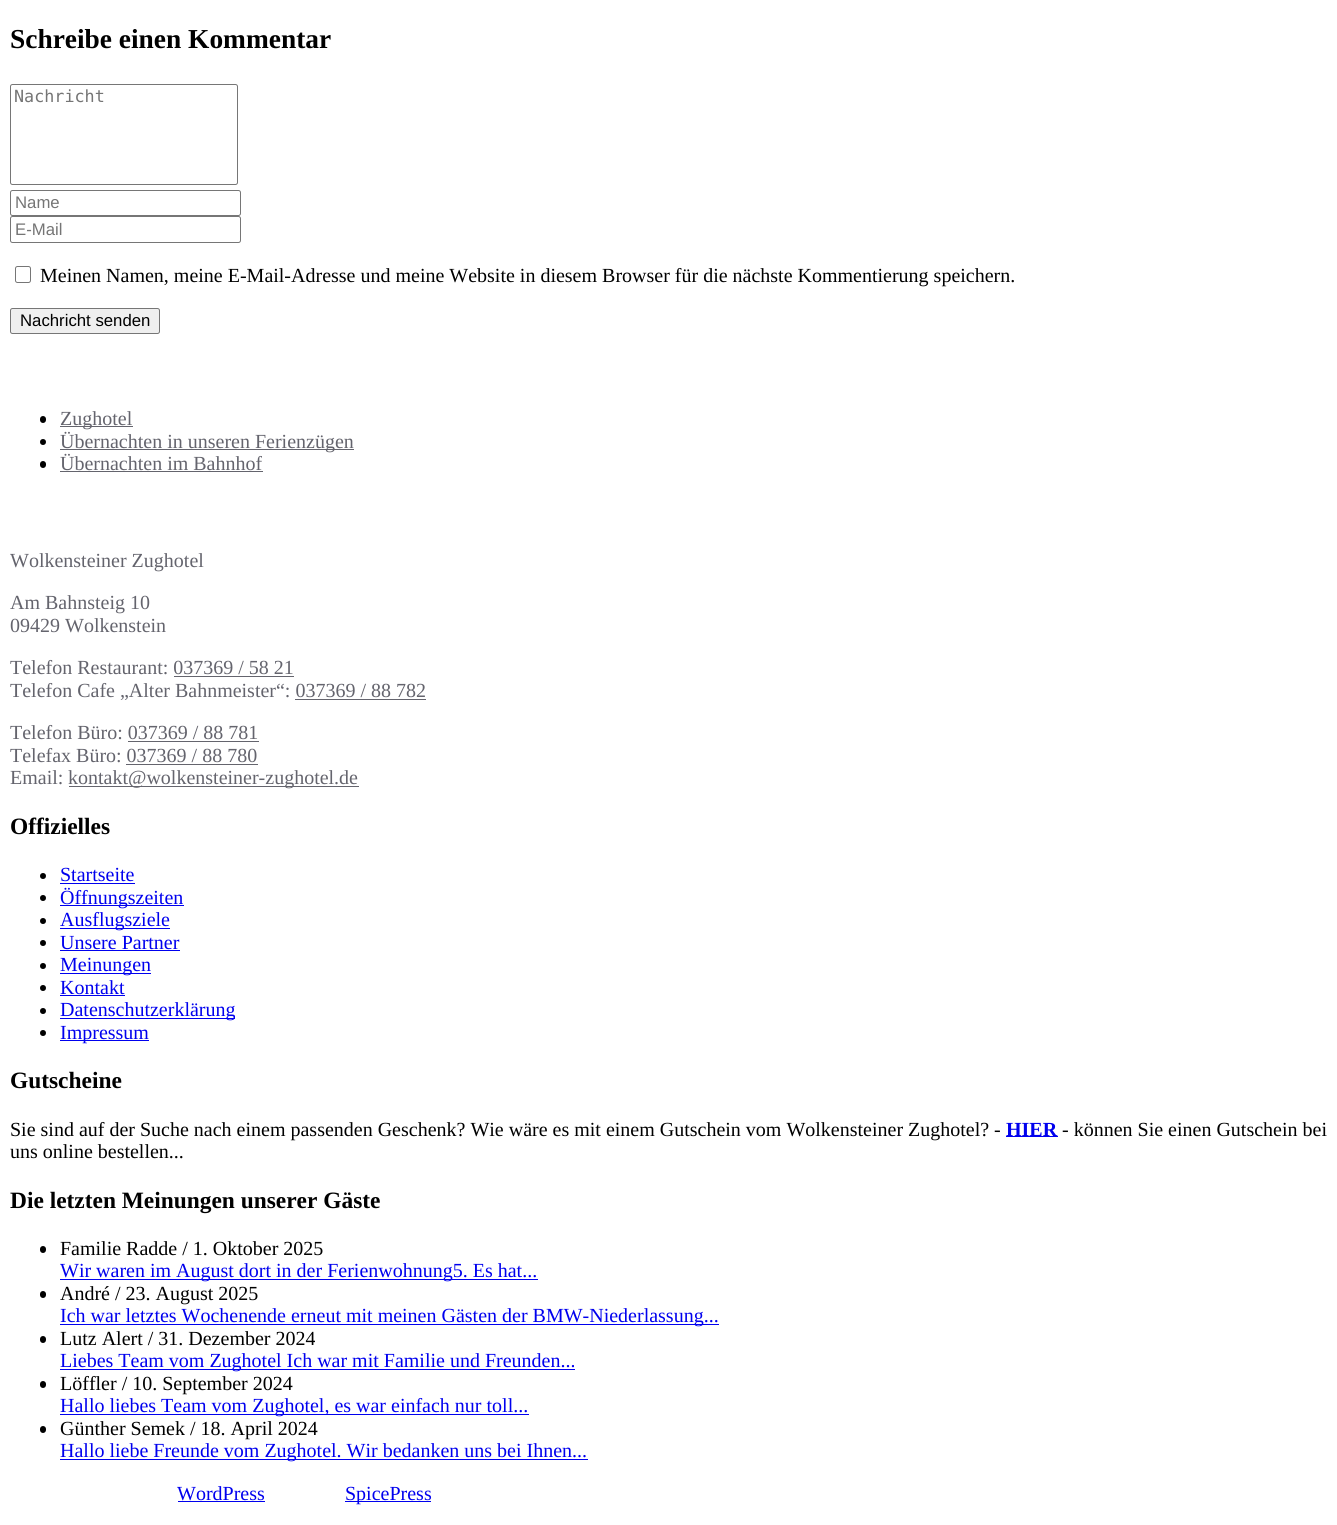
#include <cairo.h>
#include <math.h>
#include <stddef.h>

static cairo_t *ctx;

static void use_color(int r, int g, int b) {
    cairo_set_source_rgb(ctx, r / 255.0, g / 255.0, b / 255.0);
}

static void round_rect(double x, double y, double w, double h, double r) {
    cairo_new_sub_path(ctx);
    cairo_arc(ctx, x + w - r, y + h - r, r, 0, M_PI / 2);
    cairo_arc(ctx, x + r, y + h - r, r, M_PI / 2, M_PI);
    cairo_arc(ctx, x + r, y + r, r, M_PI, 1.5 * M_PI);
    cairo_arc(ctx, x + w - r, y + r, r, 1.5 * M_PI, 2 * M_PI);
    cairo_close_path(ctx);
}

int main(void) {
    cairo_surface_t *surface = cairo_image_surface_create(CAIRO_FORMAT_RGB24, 1337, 1525);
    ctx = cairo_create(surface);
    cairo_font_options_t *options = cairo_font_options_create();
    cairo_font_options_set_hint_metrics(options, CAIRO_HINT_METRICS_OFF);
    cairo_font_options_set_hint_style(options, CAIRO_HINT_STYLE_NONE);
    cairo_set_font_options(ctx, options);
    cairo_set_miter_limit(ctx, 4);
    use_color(255, 255, 255);
    cairo_paint(ctx);
    cairo_select_font_face(ctx, "Liberation Serif", CAIRO_FONT_SLANT_NORMAL, CAIRO_FONT_WEIGHT_BOLD);
    cairo_set_font_size(ctx, 27.4);
    use_color(0, 0, 0);
    cairo_move_to(ctx, 10, 48);
    cairo_show_text(ctx, "Schreibe einen Kommentar");
    round_rect(10.5, 84.5, 227, 100, 2);
    use_color(118, 118, 118);
    cairo_set_line_width(ctx, 1);
    cairo_stroke(ctx);
    cairo_select_font_face(ctx, "DejaVu Sans Mono", CAIRO_FONT_SLANT_NORMAL, CAIRO_FONT_WEIGHT_NORMAL);
    cairo_set_font_size(ctx, 16.75);
    use_color(117, 117, 117);
    cairo_move_to(ctx, 14, 102);
    cairo_show_text(ctx, "Nachricht");
    round_rect(10.5, 190.5, 230, 25, 2);
    use_color(118, 118, 118);
    cairo_stroke(ctx);
    cairo_select_font_face(ctx, "Liberation Sans", CAIRO_FONT_SLANT_NORMAL, CAIRO_FONT_WEIGHT_NORMAL);
    use_color(117, 117, 117);
    cairo_move_to(ctx, 15, 208);
    cairo_show_text(ctx, "Name");
    round_rect(10.5, 216.5, 230, 26, 2);
    use_color(118, 118, 118);
    cairo_stroke(ctx);
    use_color(117, 117, 117);
    cairo_move_to(ctx, 15, 235);
    cairo_show_text(ctx, "E-Mail");
    round_rect(15.5, 266.5, 15, 16, 2);
    use_color(118, 118, 118);
    cairo_stroke(ctx);
    cairo_select_font_face(ctx, "Liberation Serif", CAIRO_FONT_SLANT_NORMAL, CAIRO_FONT_WEIGHT_NORMAL);
    cairo_set_font_size(ctx, 20);
    use_color(0, 0, 0);
    cairo_move_to(ctx, 40, 282);
    cairo_show_text(ctx, "Meinen Namen, meine E-Mail-Adresse und meine Website in diesem Browser für die nächste Kommentierung speichern.");
    use_color(239, 239, 239);
    round_rect(10.5, 308.5, 149, 25, 2);
    cairo_fill_preserve(ctx);
    use_color(118, 118, 118);
    cairo_stroke(ctx);
    cairo_select_font_face(ctx, "Liberation Sans", CAIRO_FONT_SLANT_NORMAL, CAIRO_FONT_WEIGHT_NORMAL);
    cairo_set_font_size(ctx, 16.75);
    use_color(0, 0, 0);
    cairo_move_to(ctx, 20, 326);
    cairo_show_text(ctx, "Nachricht senden");
    round_rect(40, 416, 6, 7, 3);
    cairo_fill(ctx);
    use_color(100, 100, 109);
    cairo_rectangle(ctx, 60, 426, 73, 1);
    cairo_fill(ctx);
    cairo_select_font_face(ctx, "Liberation Serif", CAIRO_FONT_SLANT_NORMAL, CAIRO_FONT_WEIGHT_NORMAL);
    cairo_set_font_size(ctx, 20);
    cairo_move_to(ctx, 60, 425);
    cairo_show_text(ctx, "Zughotel");
    use_color(0, 0, 0);
    cairo_new_path(ctx);
    cairo_arc(ctx, 43, 442, 3, 0, 2 * M_PI);
    cairo_fill(ctx);
    use_color(100, 100, 109);
    cairo_rectangle(ctx, 60, 449, 294, 1);
    cairo_fill(ctx);
    cairo_move_to(ctx, 60, 448);
    cairo_show_text(ctx, "Übernachten in unseren Ferienzügen");
    use_color(0, 0, 0);
    round_rect(40, 461, 6, 7, 3);
    cairo_fill(ctx);
    use_color(100, 100, 109);
    cairo_move_to(ctx, 60, 470);
    cairo_show_text(ctx, "Übernachten im Bahnhof");
    cairo_rectangle(ctx, 60, 471, 203, 1);
    cairo_fill(ctx);
    cairo_move_to(ctx, 10, 567);
    cairo_show_text(ctx, "Wolkensteiner Zughotel");
    cairo_move_to(ctx, 10, 609);
    cairo_show_text(ctx, "Am Bahnsteig 10");
    cairo_move_to(ctx, 10, 632);
    cairo_show_text(ctx, "09429 Wolkenstein");
    cairo_move_to(ctx, 10, 674);
    cairo_show_text(ctx, "Telefon Restaurant: 037369 / 58 21");
    cairo_rectangle(ctx, 174, 676, 120, 1);
    cairo_fill(ctx);
    cairo_move_to(ctx, 10, 697);
    cairo_show_text(ctx, "Telefon Cafe „Alter Bahnmeister“: 037369 / 88 782");
    cairo_rectangle(ctx, 295, 699, 131, 1);
    cairo_fill(ctx);
    cairo_move_to(ctx, 10, 739);
    cairo_show_text(ctx, "Telefon Büro: 037369 / 88 781");
    cairo_rectangle(ctx, 128, 741, 131, 1);
    cairo_fill(ctx);
    cairo_move_to(ctx, 10, 762);
    cairo_show_text(ctx, "Telefax Büro: 037369 / 88 780");
    cairo_rectangle(ctx, 126, 764, 132, 1);
    cairo_fill(ctx);
    cairo_move_to(ctx, 10, 784);
    cairo_show_text(ctx, "Email:");
    cairo_rectangle(ctx, 69, 786, 290, 1);
    cairo_fill(ctx);
    cairo_move_to(ctx, 68, 784);
    cairo_show_text(ctx, "kontakt@wolkensteiner-zughotel.de");
    cairo_select_font_face(ctx, "Liberation Serif", CAIRO_FONT_SLANT_NORMAL, CAIRO_FONT_WEIGHT_BOLD);
    cairo_set_font_size(ctx, 23.4);
    use_color(0, 0, 0);
    cairo_move_to(ctx, 10, 834);
    cairo_show_text(ctx, "Offizielles");
    cairo_new_path(ctx);
    cairo_arc(ctx, 43, 876, 3, 0, 2 * M_PI);
    cairo_fill(ctx);
    cairo_select_font_face(ctx, "Liberation Serif", CAIRO_FONT_SLANT_NORMAL, CAIRO_FONT_WEIGHT_NORMAL);
    cairo_set_font_size(ctx, 20);
    use_color(0, 0, 238);
    cairo_move_to(ctx, 60, 881);
    cairo_show_text(ctx, "Startseite");
    cairo_rectangle(ctx, 60, 883, 75, 1);
    cairo_fill(ctx);
    use_color(0, 0, 0);
    cairo_arc(ctx, 43, 898, 3, 0, 2 * M_PI);
    cairo_fill(ctx);
    use_color(0, 0, 238);
    cairo_rectangle(ctx, 60, 905, 124, 1);
    cairo_fill(ctx);
    cairo_move_to(ctx, 60, 904);
    cairo_show_text(ctx, "Öffnungszeiten");
    use_color(0, 0, 0);
    cairo_new_path(ctx);
    cairo_arc(ctx, 43, 921, 3, 0, 2 * M_PI);
    cairo_fill(ctx);
    use_color(0, 0, 238);
    cairo_rectangle(ctx, 60, 928, 110, 1);
    cairo_fill(ctx);
    cairo_move_to(ctx, 60, 926);
    cairo_show_text(ctx, "Ausflugsziele");
    use_color(0, 0, 0);
    cairo_new_path(ctx);
    cairo_arc(ctx, 43, 943, 3, 0, 2 * M_PI);
    cairo_fill(ctx);
    use_color(0, 0, 238);
    cairo_move_to(ctx, 60, 949);
    cairo_show_text(ctx, "Unsere Partner");
    cairo_rectangle(ctx, 60, 950, 120, 1);
    cairo_fill(ctx);
    use_color(0, 0, 0);
    cairo_arc(ctx, 43, 966, 3, 0, 2 * M_PI);
    cairo_fill(ctx);
    use_color(0, 0, 238);
    cairo_rectangle(ctx, 60, 973, 91, 1);
    cairo_fill(ctx);
    cairo_move_to(ctx, 60, 971);
    cairo_show_text(ctx, "Meinungen");
    use_color(0, 0, 0);
    cairo_new_path(ctx);
    cairo_arc(ctx, 43, 988, 3, 0, 2 * M_PI);
    cairo_fill(ctx);
    use_color(0, 0, 238);
    cairo_move_to(ctx, 60, 994);
    cairo_show_text(ctx, "Kontakt");
    cairo_rectangle(ctx, 60, 995, 65, 1);
    cairo_fill(ctx);
    use_color(0, 0, 0);
    cairo_arc(ctx, 43, 1011, 3, 0, 2 * M_PI);
    cairo_fill(ctx);
    use_color(0, 0, 238);
    cairo_rectangle(ctx, 60, 1018, 175, 1);
    cairo_fill(ctx);
    cairo_move_to(ctx, 60, 1016);
    cairo_show_text(ctx, "Datenschutzerklärung");
    use_color(0, 0, 0);
    cairo_new_path(ctx);
    cairo_arc(ctx, 43, 1033, 3, 0, 2 * M_PI);
    cairo_fill(ctx);
    use_color(0, 0, 238);
    cairo_rectangle(ctx, 60, 1040, 89, 1);
    cairo_fill(ctx);
    cairo_move_to(ctx, 60, 1039);
    cairo_show_text(ctx, "Impressum");
    cairo_select_font_face(ctx, "Liberation Serif", CAIRO_FONT_SLANT_NORMAL, CAIRO_FONT_WEIGHT_BOLD);
    cairo_set_font_size(ctx, 23.4);
    use_color(0, 0, 0);
    cairo_move_to(ctx, 10, 1088);
    cairo_show_text(ctx, "Gutscheine");
    cairo_select_font_face(ctx, "Liberation Serif", CAIRO_FONT_SLANT_NORMAL, CAIRO_FONT_WEIGHT_NORMAL);
    cairo_set_font_size(ctx, 20);
    cairo_move_to(ctx, 10, 1136);
    cairo_show_text(ctx, "Sie sind auf der Suche nach einem passenden Geschenk? Wie wäre es mit einem Gutschein vom Wolkensteiner Zughotel? -");
    cairo_select_font_face(ctx, "Liberation Serif", CAIRO_FONT_SLANT_NORMAL, CAIRO_FONT_WEIGHT_BOLD);
    use_color(0, 0, 238);
    cairo_move_to(ctx, 1006, 1136);
    cairo_show_text(ctx, "HIER");
    cairo_rectangle(ctx, 1006, 1136, 52, 1);
    cairo_fill(ctx);
    cairo_select_font_face(ctx, "Liberation Serif", CAIRO_FONT_SLANT_NORMAL, CAIRO_FONT_WEIGHT_NORMAL);
    use_color(0, 0, 0);
    cairo_move_to(ctx, 1062, 1136);
    cairo_show_text(ctx, "- können Sie einen Gutschein bei");
    cairo_move_to(ctx, 10, 1158);
    cairo_show_text(ctx, "uns online bestellen...");
    cairo_select_font_face(ctx, "Liberation Serif", CAIRO_FONT_SLANT_NORMAL, CAIRO_FONT_WEIGHT_BOLD);
    cairo_set_font_size(ctx, 23.4);
    cairo_move_to(ctx, 10, 1208);
    cairo_show_text(ctx, "Die letzten Meinungen unserer Gäste");
    round_rect(40, 1246, 6, 7, 3);
    cairo_fill(ctx);
    cairo_select_font_face(ctx, "Liberation Serif", CAIRO_FONT_SLANT_NORMAL, CAIRO_FONT_WEIGHT_NORMAL);
    cairo_set_font_size(ctx, 20);
    cairo_move_to(ctx, 60, 1255);
    cairo_show_text(ctx, "Familie Radde / 1. Oktober 2025");
    use_color(0, 0, 238);
    cairo_rectangle(ctx, 60, 1279, 478, 1);
    cairo_fill(ctx);
    cairo_move_to(ctx, 60, 1277);
    cairo_show_text(ctx, "Wir waren im August dort in der Ferienwohnung5. Es hat...");
    use_color(0, 0, 0);
    round_rect(40, 1291, 6, 7, 3);
    cairo_fill(ctx);
    cairo_move_to(ctx, 60, 1300);
    cairo_show_text(ctx, "André / 23. August 2025");
    use_color(0, 0, 238);
    cairo_rectangle(ctx, 60, 1324, 659, 1);
    cairo_fill(ctx);
    cairo_move_to(ctx, 60, 1322);
    cairo_show_text(ctx, "Ich war letztes Wochenende erneut mit meinen Gästen der BMW-Niederlassung...");
    use_color(0, 0, 0);
    round_rect(40, 1336, 6, 7, 3);
    cairo_fill(ctx);
    cairo_move_to(ctx, 60, 1345);
    cairo_show_text(ctx, "Lutz Alert / 31. Dezember 2024");
    use_color(0, 0, 238);
    cairo_rectangle(ctx, 60, 1369, 515, 1);
    cairo_fill(ctx);
    cairo_move_to(ctx, 60, 1367);
    cairo_show_text(ctx, "Liebes Team vom Zughotel Ich war mit Familie und Freunden...");
    use_color(0, 0, 0);
    round_rect(40, 1381, 6, 7, 3);
    cairo_fill(ctx);
    cairo_move_to(ctx, 60, 1390);
    cairo_show_text(ctx, "Löffler / 10. September 2024");
    use_color(0, 0, 238);
    cairo_rectangle(ctx, 60, 1414, 469, 1);
    cairo_fill(ctx);
    cairo_move_to(ctx, 60, 1412);
    cairo_show_text(ctx, "Hallo liebes Team vom Zughotel, es war einfach nur toll...");
    use_color(0, 0, 0);
    round_rect(40, 1426, 6, 7, 3);
    cairo_fill(ctx);
    cairo_move_to(ctx, 60, 1435);
    cairo_show_text(ctx, "Günther Semek / 18. April 2024");
    use_color(0, 0, 238);
    cairo_rectangle(ctx, 60, 1459, 528, 1);
    cairo_fill(ctx);
    cairo_move_to(ctx, 60, 1457);
    cairo_show_text(ctx, "Hallo liebe Freunde vom Zughotel. Wir bedanken uns bei Ihnen...");
    cairo_move_to(ctx, 177, 1500);
    cairo_show_text(ctx, "WordPress");
    cairo_rectangle(ctx, 178, 1501, 87, 1);
    cairo_fill(ctx);
    cairo_rectangle(ctx, 345, 1501, 86, 1);
    cairo_fill(ctx);
    cairo_move_to(ctx, 345, 1500);
    cairo_show_text(ctx, "SpicePress");
    cairo_surface_write_to_png(surface, "result.png");
    cairo_font_options_destroy(options);
    cairo_destroy(ctx);
    cairo_surface_destroy(surface);
    return 0;
}
